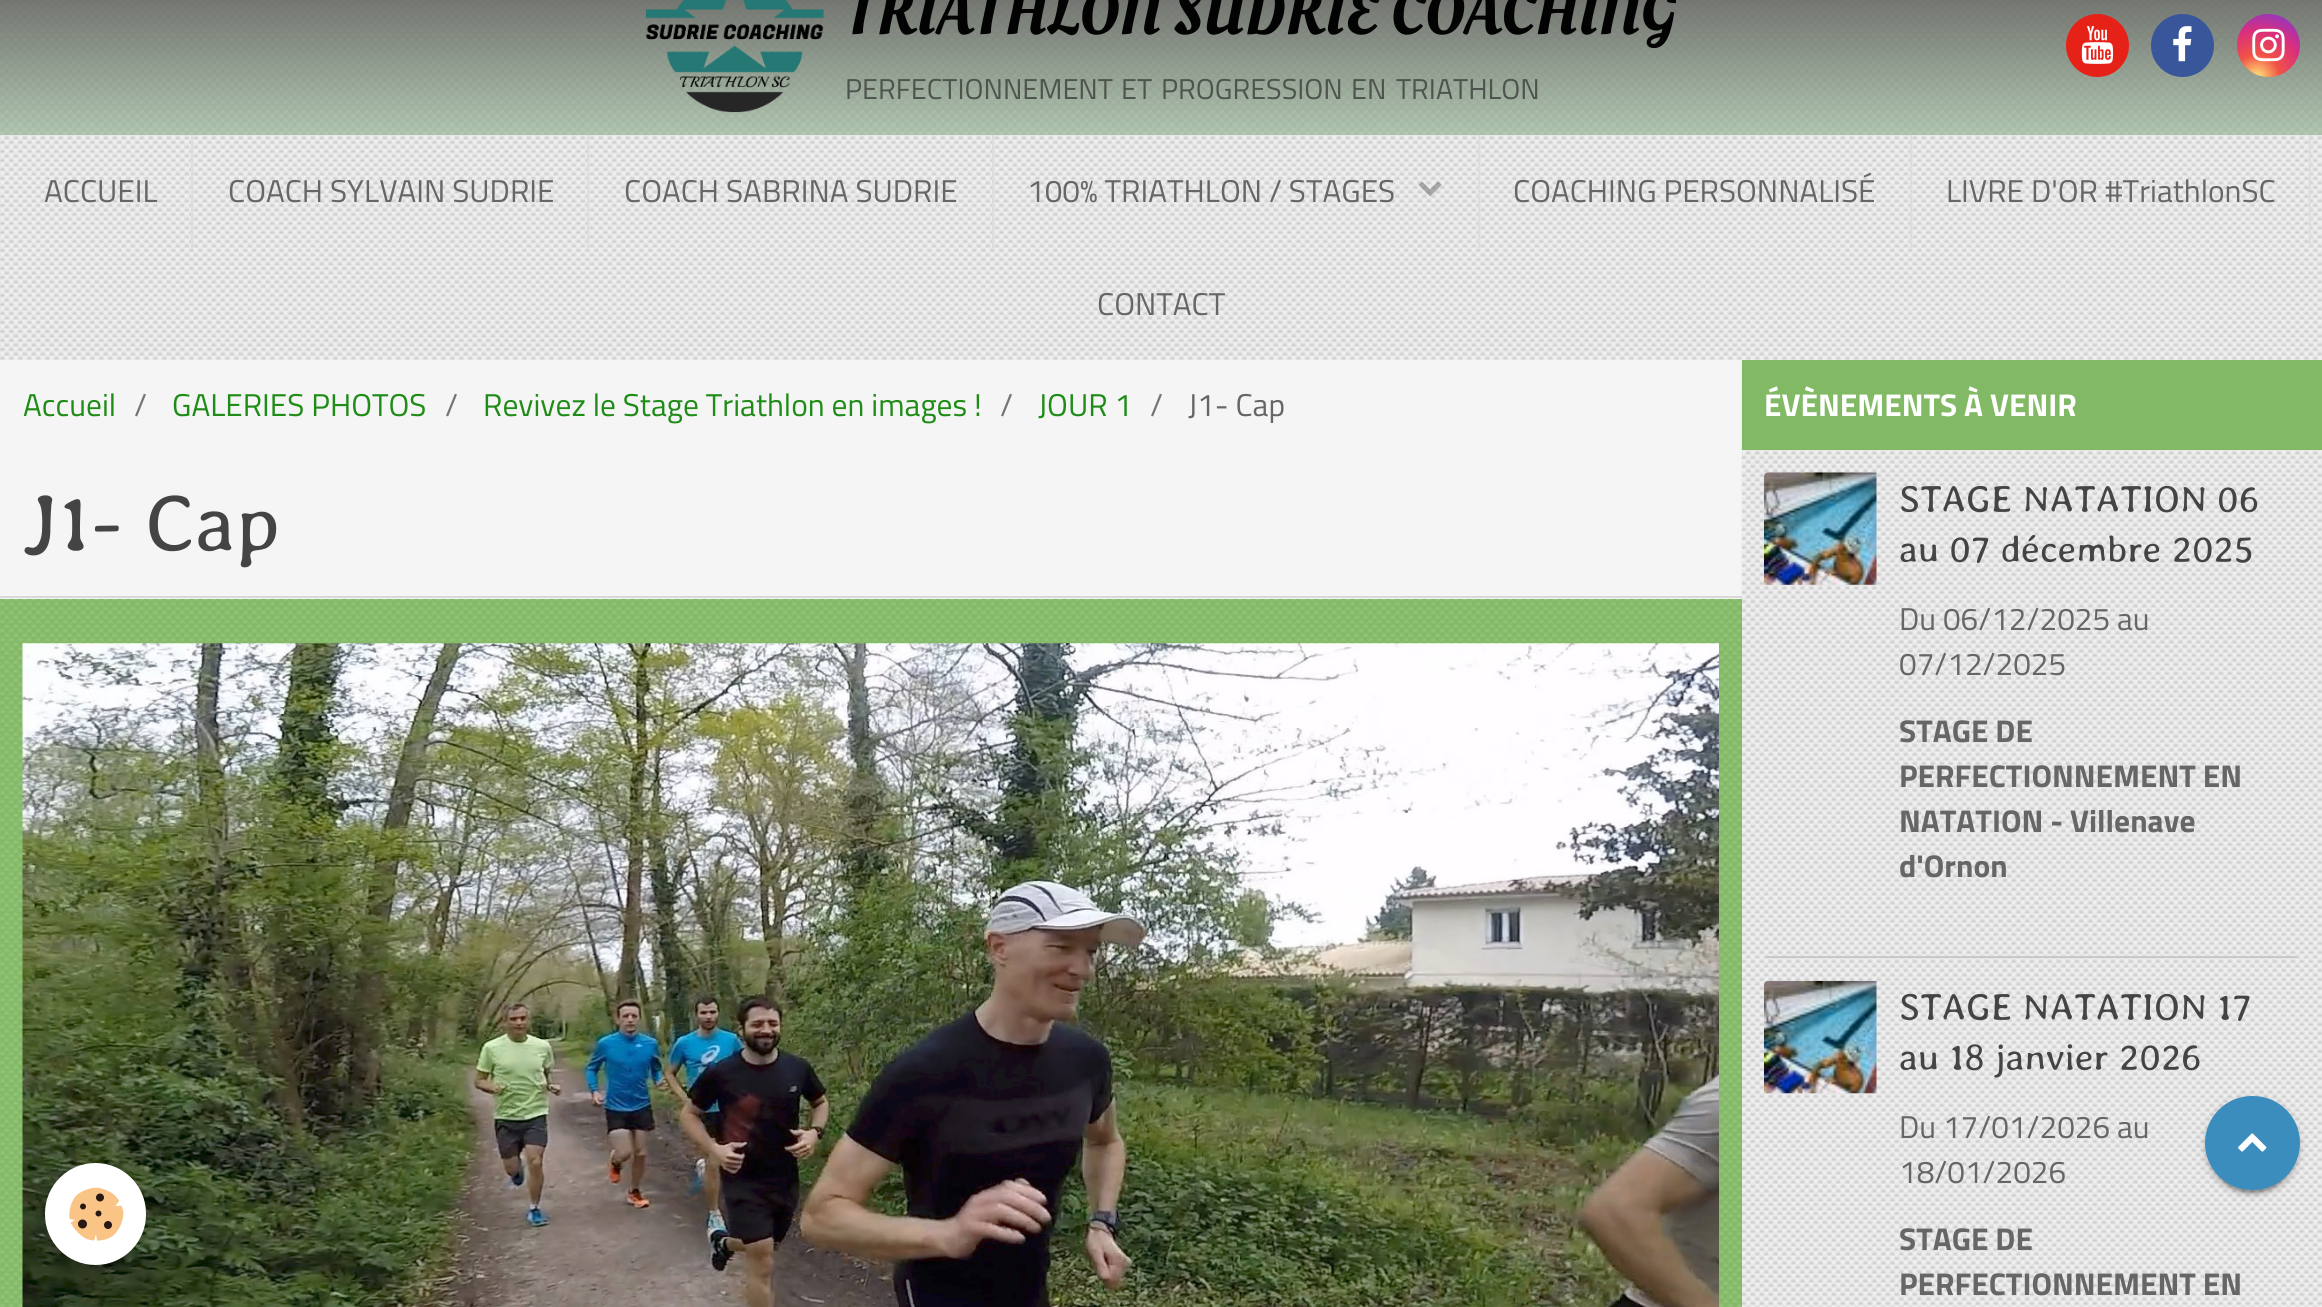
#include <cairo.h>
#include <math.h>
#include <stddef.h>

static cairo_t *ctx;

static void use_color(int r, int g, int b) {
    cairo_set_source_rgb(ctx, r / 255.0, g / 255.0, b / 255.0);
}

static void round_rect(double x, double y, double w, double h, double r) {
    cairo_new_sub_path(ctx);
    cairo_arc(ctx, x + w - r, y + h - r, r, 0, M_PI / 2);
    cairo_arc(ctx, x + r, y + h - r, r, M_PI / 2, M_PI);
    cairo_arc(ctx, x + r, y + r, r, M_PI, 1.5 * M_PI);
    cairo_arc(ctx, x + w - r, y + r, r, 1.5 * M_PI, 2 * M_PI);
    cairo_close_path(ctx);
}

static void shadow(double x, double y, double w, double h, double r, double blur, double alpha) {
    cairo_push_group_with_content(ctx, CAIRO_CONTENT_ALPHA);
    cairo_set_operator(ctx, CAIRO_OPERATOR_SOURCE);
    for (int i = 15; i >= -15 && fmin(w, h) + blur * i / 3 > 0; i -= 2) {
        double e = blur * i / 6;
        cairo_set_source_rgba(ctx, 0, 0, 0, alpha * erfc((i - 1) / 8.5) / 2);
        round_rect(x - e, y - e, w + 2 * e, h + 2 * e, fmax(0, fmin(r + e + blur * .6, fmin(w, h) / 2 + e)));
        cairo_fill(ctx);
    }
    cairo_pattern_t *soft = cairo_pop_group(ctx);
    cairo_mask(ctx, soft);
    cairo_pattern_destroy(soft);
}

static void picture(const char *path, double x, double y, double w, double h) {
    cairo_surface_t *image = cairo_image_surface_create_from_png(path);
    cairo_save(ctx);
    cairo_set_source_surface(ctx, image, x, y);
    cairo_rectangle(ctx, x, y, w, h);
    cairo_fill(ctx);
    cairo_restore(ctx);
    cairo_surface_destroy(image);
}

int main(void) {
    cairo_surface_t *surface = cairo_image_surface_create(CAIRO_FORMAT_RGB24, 2322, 1307);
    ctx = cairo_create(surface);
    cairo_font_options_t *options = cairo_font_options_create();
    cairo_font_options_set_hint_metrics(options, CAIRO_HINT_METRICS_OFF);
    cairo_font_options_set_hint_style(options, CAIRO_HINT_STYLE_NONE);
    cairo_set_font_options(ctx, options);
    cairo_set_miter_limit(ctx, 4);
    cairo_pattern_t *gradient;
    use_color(130, 185, 101);
    cairo_paint(ctx);
    picture("img1.png", 0, 0, 2322, 1307);
    use_color(240, 240, 240);
    cairo_rectangle(ctx, 0, 135, 2322, 225);
    cairo_fill(ctx);
    picture("img7.png", 0, 134, 2322, 226);
    cairo_set_source_rgba(ctx, 0.745, 0.765, 0.8, 0.65);
    cairo_rectangle(ctx, 0, 0, 2322, 135);
    cairo_fill(ctx);
    picture("img2.png", 0, 1, 2322, 134);
    gradient = cairo_pattern_create_linear(1161, -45, 1161, 135);
    cairo_pattern_add_color_stop_rgba(gradient, 0, 0.376, 0.361, 0.361, 1);
    cairo_pattern_add_color_stop_rgba(gradient, 1, 0.376, 0.361, 0.361, 0);
    cairo_set_source(ctx, gradient);
    cairo_pattern_destroy(gradient);
    cairo_rectangle(ctx, 0, 0, 2322, 131);
    cairo_fill(ctx);
    picture("img3.png", 645, 0, 179, 113);
    cairo_save(ctx);
    cairo_rectangle(ctx, 846, 0, 830, 54);
    cairo_clip(ctx);
    cairo_select_font_face(ctx, "Oleo Script", CAIRO_FONT_SLANT_NORMAL, CAIRO_FONT_WEIGHT_NORMAL);
    cairo_set_font_size(ctx, 63);
    use_color(3, 3, 3);
    cairo_move_to(ctx, 845, 34);
    cairo_show_text(ctx, "TRIATHLON SUDRIE COACHING");
    cairo_restore(ctx);
    cairo_select_font_face(ctx, "Titillium Web", CAIRO_FONT_SLANT_NORMAL, CAIRO_FONT_WEIGHT_NORMAL);
    cairo_set_font_size(ctx, 28.75);
    use_color(77, 84, 77);
    cairo_move_to(ctx, 845, 99);
    cairo_show_text(ctx, "PERFECTIONNEMENT");
    cairo_move_to(ctx, 1121, 99);
    cairo_show_text(ctx, "ET");
    cairo_move_to(ctx, 1161, 99);
    cairo_show_text(ctx, "PROGRESSION");
    cairo_move_to(ctx, 1351, 99);
    cairo_show_text(ctx, "EN");
    cairo_move_to(ctx, 1396, 99);
    cairo_show_text(ctx, "TRIATHLON");
    use_color(230, 33, 23);
    cairo_new_path(ctx);
    cairo_arc(ctx, 2097.5, 45.5, 31.5, 0, 2 * M_PI);
    cairo_fill(ctx);
    picture("img4.png", 2081, 26, 33, 38);
    use_color(56, 86, 153);
    cairo_arc(ctx, 2182.5, 45.5, 31.5, 0, 2 * M_PI);
    cairo_fill(ctx);
    picture("img5.png", 2173, 26, 19, 36);
    gradient = cairo_pattern_create_radial(2257, 77, 0, 2257, 77, 76);
    cairo_pattern_add_color_stop_rgba(gradient, 0.04, 0.996, 0.827, 0.451, 1);
    cairo_pattern_add_color_stop_rgba(gradient, 0.3, 0.945, 0.322, 0.271, 1);
    cairo_pattern_add_color_stop_rgba(gradient, 0.62, 0.851, 0.18, 0.498, 1);
    cairo_pattern_add_color_stop_rgba(gradient, 0.85, 0.608, 0.212, 0.718, 1);
    cairo_pattern_add_color_stop_rgba(gradient, 1, 0.318, 0.369, 0.812, 1);
    cairo_set_source(ctx, gradient);
    cairo_pattern_destroy(gradient);
    cairo_arc(ctx, 2268.5, 45.5, 31.5, 0, 2 * M_PI);
    cairo_fill(ctx);
    picture("img6.png", 2252, 28, 33, 34);
    use_color(221, 221, 221);
    cairo_rectangle(ctx, 191, 135, 2, 113);
    cairo_fill(ctx);
    cairo_set_font_size(ctx, 31.5);
    use_color(102, 102, 102);
    cairo_move_to(ctx, 44, 202);
    cairo_show_text(ctx, "ACCUEIL");
    use_color(221, 221, 221);
    cairo_rectangle(ctx, 587, 135, 2, 113);
    cairo_fill(ctx);
    use_color(102, 102, 102);
    cairo_move_to(ctx, 228, 202);
    cairo_show_text(ctx, "COACH SYLVAIN SUDRIE");
    use_color(221, 221, 221);
    cairo_rectangle(ctx, 992, 135, 2, 113);
    cairo_fill(ctx);
    use_color(102, 102, 102);
    cairo_move_to(ctx, 624, 202);
    cairo_show_text(ctx, "COACH SABRINA SUDRIE");
    use_color(221, 221, 221);
    cairo_rectangle(ctx, 1478, 135, 2, 113);
    cairo_fill(ctx);
    use_color(102, 102, 102);
    cairo_move_to(ctx, 1027, 202);
    cairo_show_text(ctx, "100% TRIATHLON / STAGES");
    picture("img8.png", 1418, 181, 24, 16);
    use_color(221, 221, 221);
    cairo_rectangle(ctx, 1910, 135, 2, 113);
    cairo_fill(ctx);
    use_color(102, 102, 102);
    cairo_move_to(ctx, 1513, 202);
    cairo_show_text(ctx, "COACHING PERSONNALISÉ");
    use_color(221, 221, 221);
    cairo_rectangle(ctx, 2309, 135, 2, 113);
    cairo_fill(ctx);
    use_color(102, 102, 102);
    cairo_move_to(ctx, 1946, 202);
    cairo_show_text(ctx, "LIVRE D'OR #TriathlonSC");
    cairo_move_to(ctx, 1097, 315);
    cairo_show_text(ctx, "CONTACT");
    use_color(245, 245, 245);
    cairo_rectangle(ctx, 0, 360, 1742, 239);
    cairo_fill(ctx);
    use_color(30, 140, 23);
    cairo_move_to(ctx, 23, 416);
    cairo_show_text(ctx, "Accueil");
    use_color(117, 117, 117);
    cairo_move_to(ctx, 134, 416);
    cairo_show_text(ctx, "/");
    use_color(30, 140, 23);
    cairo_move_to(ctx, 172, 416);
    cairo_show_text(ctx, "GALERIES PHOTOS");
    use_color(117, 117, 117);
    cairo_move_to(ctx, 445, 416);
    cairo_show_text(ctx, "/");
    use_color(30, 140, 23);
    cairo_move_to(ctx, 483, 416);
    cairo_show_text(ctx, "Revivez le Stage Triathlon en images !");
    use_color(117, 117, 117);
    cairo_move_to(ctx, 1000, 416);
    cairo_show_text(ctx, "/");
    use_color(30, 140, 23);
    cairo_move_to(ctx, 1038, 416);
    cairo_show_text(ctx, "JOUR 1");
    use_color(117, 117, 117);
    cairo_move_to(ctx, 1150, 416);
    cairo_show_text(ctx, "/");
    use_color(102, 102, 102);
    cairo_move_to(ctx, 1188, 416);
    cairo_show_text(ctx, "J1- Cap");
    use_color(217, 217, 217);
    cairo_rectangle(ctx, 0, 596, 1742, 2);
    cairo_fill(ctx);
    cairo_select_font_face(ctx, "Averia Libre Light", CAIRO_FONT_SLANT_NORMAL, CAIRO_FONT_WEIGHT_NORMAL);
    cairo_set_font_size(ctx, 81);
    use_color(68, 68, 68);
    cairo_move_to(ctx, 23, 551);
    cairo_show_text(ctx, "J1- Cap");
    picture("img9.png", 22, 643, 1697, 664);
    use_color(240, 240, 240);
    cairo_rectangle(ctx, 1742, 450, 580, 857);
    cairo_fill(ctx);
    picture("img10.png", 1741, 362, 581, 945);
    use_color(130, 185, 101);
    cairo_rectangle(ctx, 1742, 360, 580, 90);
    cairo_fill(ctx);
    cairo_select_font_face(ctx, "Titillium Web", CAIRO_FONT_SLANT_NORMAL, CAIRO_FONT_WEIGHT_BOLD);
    cairo_set_font_size(ctx, 31.5);
    use_color(255, 255, 255);
    cairo_move_to(ctx, 1764, 416);
    cairo_show_text(ctx, "ÉVÈNEMENTS À VENIR");
    use_color(201, 201, 201);
    cairo_rectangle(ctx, 1766, 956, 531, 2);
    cairo_fill(ctx);
    picture("img11.png", 1764, 472, 113, 113);
    cairo_select_font_face(ctx, "Averia Libre Light", CAIRO_FONT_SLANT_NORMAL, CAIRO_FONT_WEIGHT_NORMAL);
    cairo_set_font_size(ctx, 37.75);
    use_color(68, 68, 68);
    cairo_move_to(ctx, 1899, 512);
    cairo_show_text(ctx, "STAGE NATATION 06");
    cairo_move_to(ctx, 1899, 562);
    cairo_show_text(ctx, "au 07 décembre 2025");
    cairo_select_font_face(ctx, "Titillium Web", CAIRO_FONT_SLANT_NORMAL, CAIRO_FONT_WEIGHT_NORMAL);
    cairo_set_font_size(ctx, 31.5);
    use_color(102, 102, 102);
    cairo_move_to(ctx, 1899, 630);
    cairo_show_text(ctx, "Du 06/12/2025 au");
    cairo_move_to(ctx, 1899, 675);
    cairo_show_text(ctx, "07/12/2025");
    cairo_select_font_face(ctx, "Titillium Web", CAIRO_FONT_SLANT_NORMAL, CAIRO_FONT_WEIGHT_BOLD);
    cairo_move_to(ctx, 1899, 742);
    cairo_show_text(ctx, "STAGE DE");
    cairo_move_to(ctx, 1899, 787);
    cairo_show_text(ctx, "PERFECTIONNEMENT EN");
    cairo_move_to(ctx, 1899, 832);
    cairo_show_text(ctx, "NATATION - Villenave");
    cairo_move_to(ctx, 1899, 877);
    cairo_show_text(ctx, "d'Ornon");
    picture("img12.png", 1764, 980, 113, 114);
    cairo_select_font_face(ctx, "Averia Libre Light", CAIRO_FONT_SLANT_NORMAL, CAIRO_FONT_WEIGHT_NORMAL);
    cairo_set_font_size(ctx, 37.75);
    use_color(68, 68, 68);
    cairo_move_to(ctx, 1899, 1020);
    cairo_show_text(ctx, "STAGE NATATION 17");
    cairo_move_to(ctx, 1899, 1070);
    cairo_show_text(ctx, "au 18 janvier 2026");
    cairo_select_font_face(ctx, "Titillium Web", CAIRO_FONT_SLANT_NORMAL, CAIRO_FONT_WEIGHT_NORMAL);
    cairo_set_font_size(ctx, 31.5);
    use_color(102, 102, 102);
    cairo_move_to(ctx, 1899, 1138);
    cairo_show_text(ctx, "Du 17/01/2026 au");
    cairo_move_to(ctx, 1899, 1183);
    cairo_show_text(ctx, "18/01/2026");
    cairo_select_font_face(ctx, "Titillium Web", CAIRO_FONT_SLANT_NORMAL, CAIRO_FONT_WEIGHT_BOLD);
    cairo_move_to(ctx, 1899, 1250);
    cairo_show_text(ctx, "STAGE DE");
    cairo_move_to(ctx, 1899, 1295);
    cairo_show_text(ctx, "PERFECTIONNEMENT EN");
    use_color(0, 0, 0);
    shadow(45, 1170, 101, 101, 50.5, 11, 0.24);
    use_color(255, 255, 255);
    round_rect(45, 1163, 101, 102, 50.5);
    cairo_fill(ctx);
    picture("img13.png", 69, 1187, 55, 54);
    use_color(0, 0, 0);
    shadow(2205, 1098, 95, 95, 47.5, 5.5, 0.12);
    shadow(2210, 1107, 85, 86, 42.5, 1, 0.2);
    shadow(2205, 1100, 95, 95, 47.5, 2, 0.14);
    use_color(59, 141, 189);
    round_rect(2205, 1096, 95, 94, 47);
    cairo_fill(ctx);
    picture("img14.png", 2238, 1133, 29, 19);
    cairo_surface_write_to_png(surface, "result.png");
    cairo_font_options_destroy(options);
    cairo_destroy(ctx);
    cairo_surface_destroy(surface);
    return 0;
}
